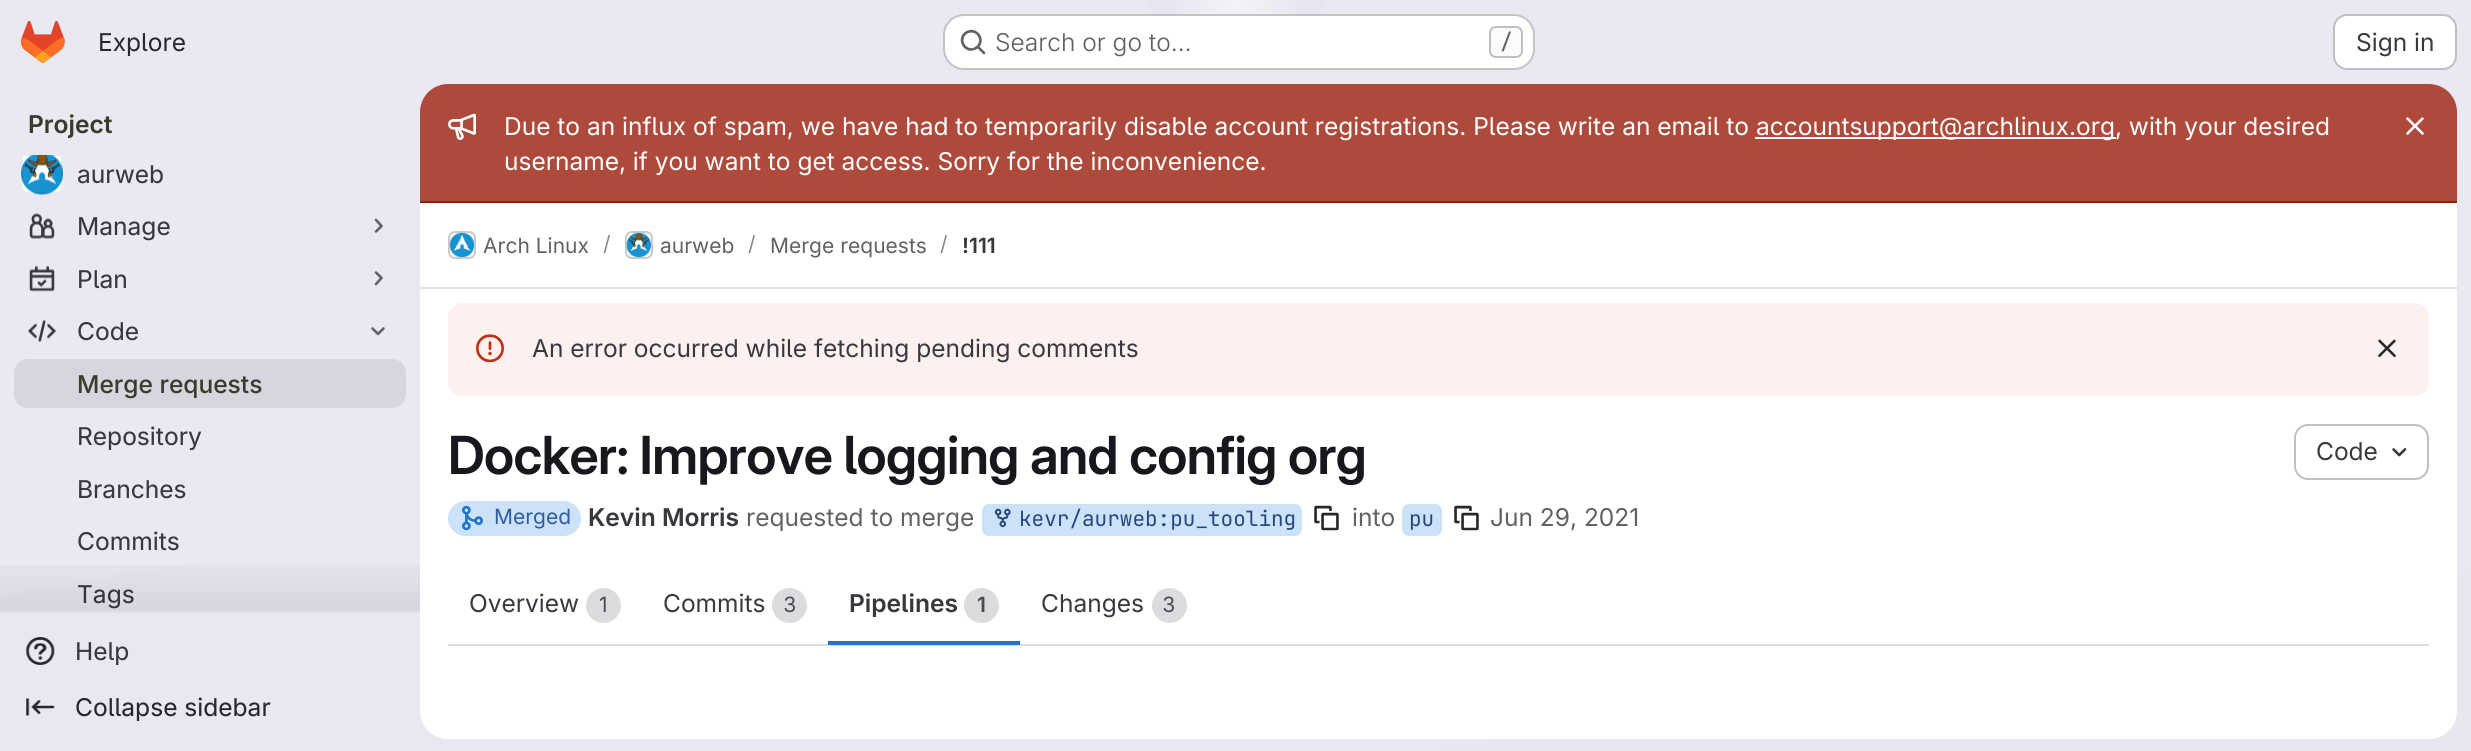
#include <cairo.h>
#include <math.h>
#include <stddef.h>

static cairo_t *ctx;

static void use_color(int r, int g, int b) {
    cairo_set_source_rgb(ctx, r / 255.0, g / 255.0, b / 255.0);
}

static void spaced_text(double x, double y, const char *s, double letter, double word) {
    cairo_move_to(ctx, x, y);
    while (*s) {
        char ch[5] = {0};
        int n = 0;
        do ch[n++] = *s++; while ((*s & 0xC0) == 0x80);
        cairo_show_text(ctx, ch);
        cairo_rel_move_to(ctx, letter + word * (*ch == ' '), 0);
    }
}

static void round_rect(double x, double y, double w, double h, double r) {
    cairo_new_sub_path(ctx);
    cairo_arc(ctx, x + w - r, y + h - r, r, 0, M_PI / 2);
    cairo_arc(ctx, x + r, y + h - r, r, M_PI / 2, M_PI);
    cairo_arc(ctx, x + r, y + r, r, M_PI, 1.5 * M_PI);
    cairo_arc(ctx, x + w - r, y + r, r, 1.5 * M_PI, 2 * M_PI);
    cairo_close_path(ctx);
}

static void picture(const char *path, double x, double y, double w, double h) {
    cairo_surface_t *image = cairo_image_surface_create_from_png(path);
    cairo_save(ctx);
    cairo_set_source_surface(ctx, image, x, y);
    cairo_rectangle(ctx, x, y, w, h);
    cairo_fill(ctx);
    cairo_restore(ctx);
    cairo_surface_destroy(image);
}

int main(void) {
    cairo_surface_t *surface = cairo_image_surface_create(CAIRO_FORMAT_RGB24, 2471, 751);
    ctx = cairo_create(surface);
    cairo_font_options_t *options = cairo_font_options_create();
    cairo_font_options_set_hint_metrics(options, CAIRO_HINT_METRICS_OFF);
    cairo_font_options_set_hint_style(options, CAIRO_HINT_STYLE_NONE);
    cairo_set_font_options(ctx, options);
    cairo_set_miter_limit(ctx, 4);
    cairo_pattern_t *gradient;
    use_color(255, 255, 255);
    cairo_paint(ctx);
    gradient = cairo_pattern_create_linear(1337, 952, 1134, -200);
    cairo_pattern_add_color_stop_rgba(gradient, 0, 0.91, 0.902, 0.941, 1);
    cairo_pattern_add_color_stop_rgba(gradient, 0.7, 0.918, 0.914, 0.949, 1);
    cairo_set_source(ctx, gradient);
    cairo_pattern_destroy(gradient);
    cairo_rectangle(ctx, 0, 0, 2471, 751);
    cairo_fill(ctx);
    gradient = cairo_pattern_create_radial(0, 0, 0, 0, 0, 1);
    cairo_pattern_set_matrix(gradient, &(cairo_matrix_t){1.0 / 1236, 0, 0, 1.0 / 753, -1.0 * 1236 / 1236, -1.0 * 0 / 753});
    cairo_pattern_add_color_stop_rgba(gradient, 0, 0.894, 0.886, 0.929, 1);
    cairo_pattern_add_color_stop_rgba(gradient, 0.1, 0.894, 0.886, 0.929, 0);
    cairo_set_source(ctx, gradient);
    cairo_pattern_destroy(gradient);
    cairo_rectangle(ctx, 1147, 0, 178, 54);
    cairo_fill(ctx);
    gradient = cairo_pattern_create_radial(0, 0, 0, 0, 0, 1);
    cairo_pattern_set_matrix(gradient, &(cairo_matrix_t){1.0 / 1236, 0, 0, 1.0 / 753, -1.0 * 1236 / 1236, -1.0 * 0 / 753});
    cairo_pattern_add_color_stop_rgba(gradient, 0, 0.894, 0.886, 0.925, 1);
    cairo_pattern_add_color_stop_rgba(gradient, 0.07, 0.894, 0.886, 0.925, 0);
    cairo_set_source(ctx, gradient);
    cairo_pattern_destroy(gradient);
    cairo_rectangle(ctx, 1228, 0, 16, 5);
    cairo_fill(ctx);
    gradient = cairo_pattern_create_radial(1236, 0, 0, 1236, 0, 1447);
    cairo_pattern_add_color_stop_rgba(gradient, 0, 1, 1, 1, 0.6);
    cairo_pattern_add_color_stop_rgba(gradient, 0.05, 1, 1, 1, 0);
    cairo_set_source(ctx, gradient);
    cairo_pattern_destroy(gradient);
    cairo_rectangle(ctx, 1175, 0, 122, 14);
    cairo_fill(ctx);
    picture("img1.png", 21, 21, 44, 42);
    cairo_select_font_face(ctx, "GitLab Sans", CAIRO_FONT_SLANT_NORMAL, CAIRO_FONT_WEIGHT_NORMAL);
    cairo_set_font_size(ctx, 24.5);
    use_color(40, 39, 45);
    cairo_move_to(ctx, 98, 51);
    cairo_show_text(ctx, "Explore");
    use_color(255, 255, 255);
    round_rect(943, 14, 592, 56, 21);
    cairo_fill(ctx);
    round_rect(944, 15, 590, 54, 20);
    cairo_set_source_rgba(ctx, 0.02, 0.02, 0.024, 0.24);
    cairo_stroke(ctx);
    picture("img2.png", 960, 29, 26, 26);
    cairo_select_font_face(ctx, "GitLab Sans Light", CAIRO_FONT_SLANT_NORMAL, CAIRO_FONT_WEIGHT_NORMAL);
    use_color(98, 97, 104);
    cairo_move_to(ctx, 995, 51);
    cairo_show_text(ctx, "Search or go to…");
    use_color(251, 250, 253);
    round_rect(1490, 27, 32, 30, 6);
    cairo_fill_preserve(ctx);
    use_color(191, 191, 195);
    cairo_stroke(ctx);
    cairo_select_font_face(ctx, "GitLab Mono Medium", CAIRO_FONT_SLANT_NORMAL, CAIRO_FONT_WEIGHT_NORMAL);
    cairo_set_font_size(ctx, 21);
    use_color(98, 97, 104);
    cairo_move_to(ctx, 1500, 49);
    cairo_show_text(ctx, "/");
    use_color(255, 255, 255);
    round_rect(2334, 15, 122, 54, 13);
    cairo_fill_preserve(ctx);
    use_color(191, 191, 195);
    cairo_stroke(ctx);
    cairo_select_font_face(ctx, "GitLab Sans", CAIRO_FONT_SLANT_NORMAL, CAIRO_FONT_WEIGHT_NORMAL);
    cairo_set_font_size(ctx, 24.5);
    use_color(58, 56, 63);
    cairo_move_to(ctx, 2356, 51);
    cairo_show_text(ctx, "Sign in");
    cairo_select_font_face(ctx, "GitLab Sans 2 SemiBold", CAIRO_FONT_SLANT_NORMAL, CAIRO_FONT_WEIGHT_NORMAL);
    use_color(57, 60, 42);
    cairo_move_to(ctx, 28, 133);
    cairo_show_text(ctx, "Project");
    use_color(225, 223, 236);
    cairo_rectangle(ctx, 0, 611, 420, 2);
    cairo_fill(ctx);
    cairo_save(ctx);
    cairo_rectangle(ctx, 0, 156, 420, 455);
    cairo_clip(ctx);
    use_color(255, 255, 255);
    round_rect(21, 152, 42, 42, 7);
    cairo_fill(ctx);
    cairo_restore(ctx);
    picture("img3.png", 21, 155, 42, 40);
    cairo_save(ctx);
    cairo_rectangle(ctx, 0, 156, 420, 455);
    cairo_clip(ctx);
    round_rect(22, 153, 40, 40, 6);
    cairo_set_source_rgba(ctx, 0.02, 0.02, 0.024, 0.08);
    cairo_stroke(ctx);
    cairo_restore(ctx);
    cairo_select_font_face(ctx, "GitLab Sans 2", CAIRO_FONT_SLANT_NORMAL, CAIRO_FONT_WEIGHT_NORMAL);
    use_color(58, 56, 63);
    cairo_move_to(ctx, 77, 183);
    cairo_show_text(ctx, "aurweb");
    picture("img4.png", 29, 213, 26, 26);
    cairo_move_to(ctx, 77, 235);
    cairo_show_text(ctx, "Manage");
    cairo_new_path(ctx);
    cairo_move_to(ctx, 376, 220);
    cairo_line_to(ctx, 381.5, 226);
    cairo_line_to(ctx, 376, 231.5);
    use_color(98, 97, 104);
    cairo_set_line_width(ctx, 2.6);
    cairo_set_line_cap(ctx, CAIRO_LINE_CAP_ROUND);
    cairo_set_line_join(ctx, CAIRO_LINE_JOIN_ROUND);
    cairo_stroke(ctx);
    picture("img5.png", 29, 265, 26, 27);
    use_color(58, 56, 63);
    cairo_move_to(ctx, 77, 288);
    cairo_show_text(ctx, "Plan");
    cairo_new_path(ctx);
    cairo_move_to(ctx, 376, 272.5);
    cairo_line_to(ctx, 381.5, 278);
    cairo_line_to(ctx, 376, 284);
    use_color(98, 97, 104);
    cairo_stroke(ctx);
    picture("img6.png", 28, 320, 28, 22);
    use_color(58, 56, 63);
    cairo_move_to(ctx, 77, 340);
    cairo_show_text(ctx, "Code");
    cairo_new_path(ctx);
    cairo_move_to(ctx, 383.5, 328.5);
    cairo_line_to(ctx, 378, 334);
    cairo_line_to(ctx, 372.5, 328.5);
    use_color(98, 97, 104);
    cairo_stroke(ctx);
    use_color(215, 214, 222);
    round_rect(14, 359, 392, 49, 14);
    cairo_fill(ctx);
    cairo_select_font_face(ctx, "GitLab Sans Medium", CAIRO_FONT_SLANT_NORMAL, CAIRO_FONT_WEIGHT_NORMAL);
    use_color(57, 60, 42);
    cairo_move_to(ctx, 77, 393);
    cairo_show_text(ctx, "Merge requests");
    cairo_select_font_face(ctx, "GitLab Sans 2", CAIRO_FONT_SLANT_NORMAL, CAIRO_FONT_WEIGHT_NORMAL);
    use_color(58, 56, 63);
    cairo_move_to(ctx, 77, 445);
    cairo_show_text(ctx, "Repository");
    cairo_move_to(ctx, 77, 498);
    cairo_show_text(ctx, "Branches");
    cairo_move_to(ctx, 77, 550);
    cairo_show_text(ctx, "Commits");
    cairo_move_to(ctx, 77, 603);
    cairo_show_text(ctx, "Tags");
    gradient = cairo_pattern_create_linear(210, 548, 210, 611);
    cairo_pattern_add_color_stop_rgba(gradient, 0, 0.02, 0.02, 0.024, 0);
    cairo_pattern_add_color_stop_rgba(gradient, 1, 0.02, 0.02, 0.024, 0.08);
    cairo_set_source(ctx, gradient);
    cairo_pattern_destroy(gradient);
    cairo_rectangle(ctx, 0, 565, 420, 46);
    cairo_fill(ctx);
    picture("img7.png", 26, 637, 29, 28);
    use_color(58, 56, 63);
    cairo_move_to(ctx, 75, 660);
    cairo_show_text(ctx, "Help");
    picture("img8.png", 26, 698, 29, 18);
    use_color(40, 39, 45);
    cairo_move_to(ctx, 75, 716);
    cairo_show_text(ctx, "Collapse sidebar");
    use_color(255, 255, 255);
    round_rect(420, 84, 2037, 655, 28);
    cairo_fill(ctx);
    use_color(173, 74, 59);
    cairo_new_path(ctx);
    cairo_move_to(ctx, 448, 84);
    cairo_line_to(ctx, 2429, 84);
    cairo_curve_to(ctx, 2444.5, 84, 2457, 96.5, 2457, 112);
    cairo_line_to(ctx, 2457, 203);
    cairo_line_to(ctx, 420, 203);
    cairo_line_to(ctx, 420, 112);
    cairo_curve_to(ctx, 420, 96.5, 432.5, 84, 448, 84);
    cairo_close_path(ctx);
    cairo_fill(ctx);
    use_color(143, 33, 16);
    cairo_rectangle(ctx, 420, 201, 2037, 2);
    cairo_fill(ctx);
    picture("img9.png", 448, 113, 28, 27);
    cairo_select_font_face(ctx, "GitLab Sans", CAIRO_FONT_SLANT_NORMAL, CAIRO_FONT_WEIGHT_NORMAL);
    use_color(255, 255, 255);
    cairo_move_to(ctx, 504, 135);
    cairo_show_text(ctx, "Due to an influx of spam, we have had to temporarily disable account registrations. Please write an email to");
    cairo_rectangle(ctx, 1755, 137, 361, 2);
    cairo_fill(ctx);
    cairo_move_to(ctx, 1756, 135);
    cairo_show_text(ctx, "accountsupport@archlinux.org, with your desired");
    cairo_move_to(ctx, 504, 170);
    cairo_show_text(ctx, "username, if you want to get access. Sorry for the inconvenience.");
    picture("img10.png", 2406, 117, 18, 18);
    use_color(225, 223, 236);
    cairo_rectangle(ctx, 420, 287, 2037, 2);
    cairo_fill(ctx);
    round_rect(449, 232, 26, 26, 6);
    use_color(220, 220, 222);
    cairo_set_line_width(ctx, 2);
    cairo_set_line_cap(ctx, CAIRO_LINE_CAP_BUTT);
    cairo_set_line_join(ctx, CAIRO_LINE_JOIN_MITER);
    cairo_stroke(ctx);
    picture("img11.png", 449, 232, 26, 26);
    round_rect(449, 232, 26, 26, 6);
    cairo_set_source_rgba(ctx, 0.02, 0.02, 0.024, 0.08);
    cairo_stroke(ctx);
    cairo_set_font_size(ctx, 21);
    use_color(98, 97, 104);
    cairo_move_to(ctx, 483, 253);
    cairo_show_text(ctx, "Arch Linux");
    use_color(137, 136, 141);
    cairo_move_to(ctx, 603, 251);
    cairo_show_text(ctx, "/");
    round_rect(626, 232, 26, 26, 6);
    use_color(220, 220, 222);
    cairo_stroke(ctx);
    picture("img12.png", 626, 232, 25, 26);
    round_rect(626, 232, 26, 26, 6);
    cairo_set_source_rgba(ctx, 0.02, 0.02, 0.024, 0.08);
    cairo_stroke(ctx);
    use_color(98, 97, 104);
    cairo_move_to(ctx, 660, 253);
    cairo_show_text(ctx, "aurweb");
    use_color(137, 136, 141);
    cairo_move_to(ctx, 748, 251);
    cairo_show_text(ctx, "/");
    use_color(98, 97, 104);
    cairo_move_to(ctx, 770, 253);
    cairo_show_text(ctx, "Merge requests");
    use_color(137, 136, 141);
    cairo_move_to(ctx, 940, 251);
    cairo_show_text(ctx, "/");
    cairo_select_font_face(ctx, "GitLab Sans 2 SemiBold", CAIRO_FONT_SLANT_NORMAL, CAIRO_FONT_WEIGHT_NORMAL);
    use_color(58, 56, 63);
    cairo_move_to(ctx, 962, 253);
    cairo_show_text(ctx, "!111");
    use_color(252, 241, 239);
    round_rect(448, 303, 1981, 93, 14);
    cairo_fill(ctx);
    picture("img13.png", 476, 334, 28, 29);
    cairo_select_font_face(ctx, "GitLab Sans", CAIRO_FONT_SLANT_NORMAL, CAIRO_FONT_WEIGHT_NORMAL);
    cairo_set_font_size(ctx, 24.5);
    use_color(58, 56, 63);
    cairo_move_to(ctx, 532, 357);
    cairo_show_text(ctx, "An error occurred while fetching pending comments");
    picture("img14.png", 2378, 339, 18, 18);
    cairo_select_font_face(ctx, "GitLab Sans SemiBold", CAIRO_FONT_SLANT_NORMAL, CAIRO_FONT_WEIGHT_NORMAL);
    cairo_set_font_size(ctx, 52.5);
    use_color(24, 23, 29);
    spaced_text(448, 474, "Docker: Improve logging and config org", -0.55, 0);
    round_rect(2295, 425, 133, 54, 13);
    use_color(191, 191, 195);
    cairo_stroke(ctx);
    cairo_select_font_face(ctx, "GitLab Sans", CAIRO_FONT_SLANT_NORMAL, CAIRO_FONT_WEIGHT_NORMAL);
    cairo_set_font_size(ctx, 24.5);
    use_color(58, 56, 63);
    cairo_move_to(ctx, 2316, 460);
    cairo_show_text(ctx, "Code");
    picture("img15.png", 2392, 448, 15, 9);
    use_color(220, 220, 222);
    cairo_rectangle(ctx, 448, 644, 1981, 2);
    cairo_fill(ctx);
    use_color(203, 226, 249);
    round_rect(448, 501, 133, 35, 17.5);
    cairo_fill(ctx);
    picture("img16.png", 462, 505, 21, 26);
    cairo_set_font_size(ctx, 21);
    use_color(47, 92, 160);
    cairo_move_to(ctx, 494, 524);
    cairo_show_text(ctx, "Merged");
    cairo_select_font_face(ctx, "GitLab Sans 2 SemiBold", CAIRO_FONT_SLANT_NORMAL, CAIRO_FONT_WEIGHT_NORMAL);
    cairo_set_font_size(ctx, 24.5);
    use_color(58, 56, 63);
    cairo_move_to(ctx, 588, 526);
    cairo_show_text(ctx, "Kevin Morris");
    cairo_select_font_face(ctx, "GitLab Sans", CAIRO_FONT_SLANT_NORMAL, CAIRO_FONT_WEIGHT_NORMAL);
    use_color(98, 97, 104);
    cairo_move_to(ctx, 746, 526);
    cairo_show_text(ctx, "requested to merge");
    use_color(203, 226, 249);
    round_rect(982, 504, 320, 32, 7);
    cairo_fill(ctx);
    picture("img17.png", 994, 508, 17, 20);
    cairo_select_font_face(ctx, "GitLab Mono", CAIRO_FONT_SLANT_NORMAL, CAIRO_FONT_WEIGHT_NORMAL);
    cairo_set_font_size(ctx, 21);
    use_color(40, 71, 121);
    cairo_move_to(ctx, 1019, 526);
    cairo_show_text(ctx, "kevr/aurweb:pu_tooling");
    picture("img18.png", 1314, 505, 25, 26);
    cairo_select_font_face(ctx, "GitLab Sans", CAIRO_FONT_SLANT_NORMAL, CAIRO_FONT_WEIGHT_NORMAL);
    cairo_set_font_size(ctx, 24.5);
    use_color(98, 97, 104);
    cairo_move_to(ctx, 1352, 526);
    cairo_show_text(ctx, "into");
    use_color(203, 226, 249);
    round_rect(1402, 504, 40, 32, 7);
    cairo_fill(ctx);
    cairo_select_font_face(ctx, "GitLab Mono", CAIRO_FONT_SLANT_NORMAL, CAIRO_FONT_WEIGHT_NORMAL);
    cairo_set_font_size(ctx, 21);
    use_color(40, 71, 121);
    cairo_move_to(ctx, 1409, 526);
    cairo_show_text(ctx, "pu");
    picture("img18.png", 1454, 505, 25, 26);
    cairo_select_font_face(ctx, "GitLab Sans", CAIRO_FONT_SLANT_NORMAL, CAIRO_FONT_WEIGHT_NORMAL);
    cairo_set_font_size(ctx, 24.5);
    use_color(98, 97, 104);
    cairo_move_to(ctx, 1490, 526);
    cairo_show_text(ctx, "Jun 29, 2021");
    use_color(58, 56, 63);
    cairo_move_to(ctx, 469, 612);
    cairo_show_text(ctx, "Overview");
    use_color(220, 220, 222);
    cairo_new_path(ctx);
    cairo_arc(ctx, 603.5, 605.5, 17.5, 0, 2 * M_PI);
    cairo_fill(ctx);
    cairo_set_font_size(ctx, 21);
    use_color(76, 75, 81);
    cairo_move_to(ctx, 599, 612);
    cairo_show_text(ctx, "1");
    cairo_set_font_size(ctx, 24.5);
    use_color(58, 56, 63);
    cairo_move_to(ctx, 663, 612);
    cairo_show_text(ctx, "Commits");
    use_color(220, 220, 222);
    cairo_new_path(ctx);
    cairo_arc(ctx, 789.5, 605.5, 17.5, 0, 2 * M_PI);
    cairo_fill(ctx);
    cairo_set_font_size(ctx, 21);
    use_color(76, 75, 81);
    cairo_move_to(ctx, 783, 612);
    cairo_show_text(ctx, "3");
    use_color(31, 117, 203);
    cairo_rectangle(ctx, 828, 641, 192, 4);
    cairo_fill(ctx);
    cairo_select_font_face(ctx, "GitLab Sans 2 SemiBold", CAIRO_FONT_SLANT_NORMAL, CAIRO_FONT_WEIGHT_NORMAL);
    cairo_set_font_size(ctx, 24.5);
    use_color(58, 56, 63);
    cairo_move_to(ctx, 849, 612);
    cairo_show_text(ctx, "Pipelines");
    use_color(220, 220, 222);
    cairo_new_path(ctx);
    cairo_arc(ctx, 981.5, 605.5, 17.5, 0, 2 * M_PI);
    cairo_fill(ctx);
    cairo_set_font_size(ctx, 21);
    use_color(76, 75, 81);
    cairo_move_to(ctx, 977, 612);
    cairo_show_text(ctx, "1");
    cairo_select_font_face(ctx, "GitLab Sans", CAIRO_FONT_SLANT_NORMAL, CAIRO_FONT_WEIGHT_NORMAL);
    cairo_set_font_size(ctx, 24.5);
    use_color(58, 56, 63);
    cairo_move_to(ctx, 1041, 612);
    cairo_show_text(ctx, "Changes");
    use_color(220, 220, 222);
    cairo_new_path(ctx);
    cairo_arc(ctx, 1169.5, 605.5, 17.5, 0, 2 * M_PI);
    cairo_fill(ctx);
    cairo_set_font_size(ctx, 21);
    use_color(76, 75, 81);
    cairo_move_to(ctx, 1162, 612);
    cairo_show_text(ctx, "3");
    cairo_surface_write_to_png(surface, "result.png");
    cairo_font_options_destroy(options);
    cairo_destroy(ctx);
    cairo_surface_destroy(surface);
    return 0;
}
